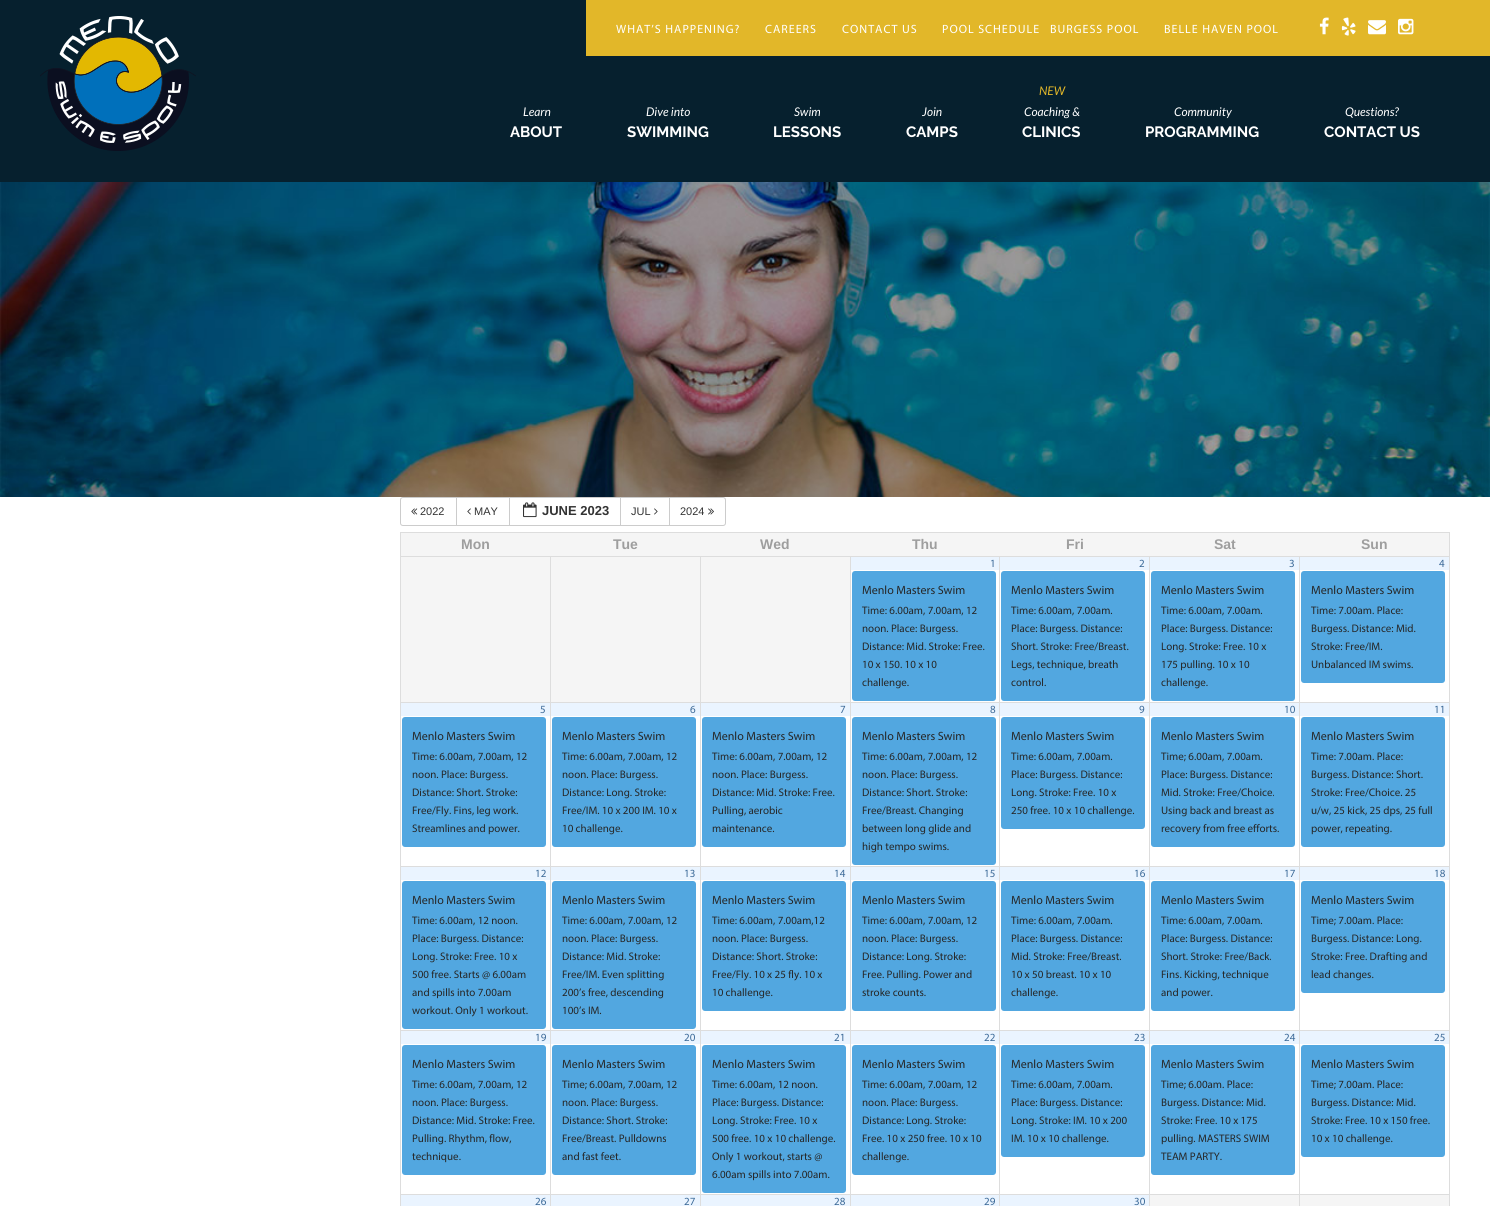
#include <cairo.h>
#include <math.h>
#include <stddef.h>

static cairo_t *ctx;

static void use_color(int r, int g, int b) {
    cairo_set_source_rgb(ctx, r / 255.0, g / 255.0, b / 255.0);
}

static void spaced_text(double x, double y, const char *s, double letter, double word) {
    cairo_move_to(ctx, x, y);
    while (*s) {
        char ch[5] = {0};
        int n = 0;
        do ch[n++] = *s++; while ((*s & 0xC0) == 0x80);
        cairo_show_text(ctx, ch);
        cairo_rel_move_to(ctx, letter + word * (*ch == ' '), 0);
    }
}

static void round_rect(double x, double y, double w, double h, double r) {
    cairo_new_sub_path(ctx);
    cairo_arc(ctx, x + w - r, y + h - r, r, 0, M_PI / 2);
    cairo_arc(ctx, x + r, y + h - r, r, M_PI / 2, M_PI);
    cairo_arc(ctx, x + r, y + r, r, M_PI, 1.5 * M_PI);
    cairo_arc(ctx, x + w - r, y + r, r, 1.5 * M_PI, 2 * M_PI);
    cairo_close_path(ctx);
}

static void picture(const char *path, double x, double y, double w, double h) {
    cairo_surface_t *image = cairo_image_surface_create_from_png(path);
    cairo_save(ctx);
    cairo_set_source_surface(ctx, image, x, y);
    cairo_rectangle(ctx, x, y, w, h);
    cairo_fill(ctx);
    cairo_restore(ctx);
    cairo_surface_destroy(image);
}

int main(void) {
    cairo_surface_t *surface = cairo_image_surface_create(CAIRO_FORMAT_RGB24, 1490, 1206);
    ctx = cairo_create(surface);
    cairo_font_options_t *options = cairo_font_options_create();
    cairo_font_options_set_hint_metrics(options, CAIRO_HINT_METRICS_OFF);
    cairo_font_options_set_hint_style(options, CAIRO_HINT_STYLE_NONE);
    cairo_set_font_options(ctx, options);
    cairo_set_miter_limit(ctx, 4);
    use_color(255, 255, 255);
    cairo_paint(ctx);
    use_color(6, 32, 46);
    cairo_rectangle(ctx, 0, 0, 1490, 182);
    cairo_fill(ctx);
    picture("img1.png", 40, 16, 156, 135);
    use_color(226, 183, 41);
    cairo_rectangle(ctx, 586, 0, 904, 56);
    cairo_fill(ctx);
    cairo_select_font_face(ctx, "Myriad", CAIRO_FONT_SLANT_NORMAL, CAIRO_FONT_WEIGHT_NORMAL);
    cairo_set_font_size(ctx, 12);
    use_color(255, 255, 255);
    spaced_text(616, 33, "WHAT’S HAPPENING?", 1, 0);
    spaced_text(765, 33, "CAREERS", 1, 0);
    spaced_text(842, 33, "CONTACT US", 1, 0);
    spaced_text(942, 33, "POOL SCHEDULE", 1, 0);
    spaced_text(1050, 33, "BURGESS POOL", 1, 0);
    spaced_text(1164, 33, "BELLE HAVEN POOL", 1, 0);
    picture("img2.png", 1319, 17, 10, 18);
    picture("img3.png", 1341, 17, 15, 19);
    picture("img4.png", 1368, 20, 18, 15);
    picture("img5.png", 1398, 18, 16, 17);
    cairo_select_font_face(ctx, "Lato", CAIRO_FONT_SLANT_ITALIC, CAIRO_FONT_WEIGHT_NORMAL);
    cairo_move_to(ctx, 523, 116);
    cairo_show_text(ctx, "Learn");
    cairo_select_font_face(ctx, "Raleway Thin", CAIRO_FONT_SLANT_NORMAL, CAIRO_FONT_WEIGHT_NORMAL);
    cairo_set_font_size(ctx, 15);
    cairo_move_to(ctx, 510, 137);
    cairo_show_text(ctx, "ABOUT");
    cairo_select_font_face(ctx, "Lato", CAIRO_FONT_SLANT_ITALIC, CAIRO_FONT_WEIGHT_NORMAL);
    cairo_set_font_size(ctx, 12);
    cairo_move_to(ctx, 646, 116);
    cairo_show_text(ctx, "Dive into");
    cairo_select_font_face(ctx, "Raleway Thin", CAIRO_FONT_SLANT_NORMAL, CAIRO_FONT_WEIGHT_NORMAL);
    cairo_set_font_size(ctx, 15);
    cairo_move_to(ctx, 627, 137);
    cairo_show_text(ctx, "SWIMMING");
    cairo_select_font_face(ctx, "Lato", CAIRO_FONT_SLANT_ITALIC, CAIRO_FONT_WEIGHT_NORMAL);
    cairo_set_font_size(ctx, 12);
    cairo_move_to(ctx, 794, 116);
    cairo_show_text(ctx, "Swim");
    cairo_select_font_face(ctx, "Raleway Thin", CAIRO_FONT_SLANT_NORMAL, CAIRO_FONT_WEIGHT_NORMAL);
    cairo_set_font_size(ctx, 15);
    cairo_move_to(ctx, 773, 137);
    cairo_show_text(ctx, "LESSONS");
    cairo_select_font_face(ctx, "Lato", CAIRO_FONT_SLANT_ITALIC, CAIRO_FONT_WEIGHT_NORMAL);
    cairo_set_font_size(ctx, 12);
    cairo_move_to(ctx, 922, 116);
    cairo_show_text(ctx, "Join");
    cairo_select_font_face(ctx, "Raleway Thin", CAIRO_FONT_SLANT_NORMAL, CAIRO_FONT_WEIGHT_NORMAL);
    cairo_set_font_size(ctx, 15);
    cairo_move_to(ctx, 906, 137);
    cairo_show_text(ctx, "CAMPS");
    cairo_select_font_face(ctx, "Lato", CAIRO_FONT_SLANT_ITALIC, CAIRO_FONT_WEIGHT_NORMAL);
    cairo_set_font_size(ctx, 12);
    use_color(226, 183, 41);
    cairo_move_to(ctx, 1039, 95);
    cairo_show_text(ctx, "NEW");
    use_color(255, 255, 255);
    cairo_move_to(ctx, 1024, 116);
    cairo_show_text(ctx, "Coaching &");
    cairo_select_font_face(ctx, "Raleway Thin", CAIRO_FONT_SLANT_NORMAL, CAIRO_FONT_WEIGHT_NORMAL);
    cairo_set_font_size(ctx, 15);
    cairo_move_to(ctx, 1022, 137);
    cairo_show_text(ctx, "CLINICS");
    cairo_select_font_face(ctx, "Lato", CAIRO_FONT_SLANT_ITALIC, CAIRO_FONT_WEIGHT_NORMAL);
    cairo_set_font_size(ctx, 12);
    cairo_move_to(ctx, 1174, 116);
    cairo_show_text(ctx, "Community");
    cairo_select_font_face(ctx, "Raleway Thin", CAIRO_FONT_SLANT_NORMAL, CAIRO_FONT_WEIGHT_NORMAL);
    cairo_set_font_size(ctx, 15);
    cairo_move_to(ctx, 1145, 137);
    cairo_show_text(ctx, "PROGRAMMING");
    cairo_select_font_face(ctx, "Lato", CAIRO_FONT_SLANT_ITALIC, CAIRO_FONT_WEIGHT_NORMAL);
    cairo_set_font_size(ctx, 12);
    cairo_move_to(ctx, 1345, 116);
    cairo_show_text(ctx, "Questions?");
    cairo_select_font_face(ctx, "Raleway Thin", CAIRO_FONT_SLANT_NORMAL, CAIRO_FONT_WEIGHT_NORMAL);
    cairo_set_font_size(ctx, 15);
    cairo_move_to(ctx, 1324, 137);
    cairo_show_text(ctx, "CONTACT US");
    picture("img6.png", 0, 182, 1490, 315);
    cairo_new_path(ctx);
    cairo_move_to(ctx, 403, 497.5);
    cairo_line_to(ctx, 456.5, 497.5);
    cairo_line_to(ctx, 456.5, 525.5);
    cairo_line_to(ctx, 403, 525.5);
    cairo_curve_to(ctx, 401.5, 525.5, 400.5, 524.5, 400.5, 523);
    cairo_line_to(ctx, 400.5, 500);
    cairo_curve_to(ctx, 400.5, 498.5, 401.5, 497.5, 403, 497.5);
    cairo_close_path(ctx);
    use_color(204, 204, 204);
    cairo_set_line_width(ctx, 1);
    cairo_stroke(ctx);
    picture("img7.png", 411, 508, 7, 7);
    cairo_select_font_face(ctx, "Liberation Sans", CAIRO_FONT_SLANT_NORMAL, CAIRO_FONT_WEIGHT_NORMAL);
    cairo_set_font_size(ctx, 11);
    use_color(51, 51, 51);
    cairo_move_to(ctx, 420, 515);
    cairo_show_text(ctx, "2022");
    cairo_rectangle(ctx, 456.5, 497.5, 53, 28);
    use_color(204, 204, 204);
    cairo_stroke(ctx);
    picture("img8.png", 467, 508, 4, 7);
    use_color(51, 51, 51);
    cairo_move_to(ctx, 474, 515);
    cairo_show_text(ctx, "MAY");
    cairo_rectangle(ctx, 509.5, 497.5, 111, 28);
    use_color(204, 204, 204);
    cairo_stroke(ctx);
    picture("img9.png", 523, 502, 14, 16);
    cairo_select_font_face(ctx, "Liberation Sans", CAIRO_FONT_SLANT_NORMAL, CAIRO_FONT_WEIGHT_BOLD);
    cairo_set_font_size(ctx, 13);
    use_color(51, 51, 51);
    cairo_move_to(ctx, 542, 515);
    cairo_show_text(ctx, "JUNE 2023");
    cairo_rectangle(ctx, 620.5, 497.5, 49, 28);
    use_color(204, 204, 204);
    cairo_stroke(ctx);
    cairo_select_font_face(ctx, "Liberation Sans", CAIRO_FONT_SLANT_NORMAL, CAIRO_FONT_WEIGHT_NORMAL);
    cairo_set_font_size(ctx, 11);
    use_color(51, 51, 51);
    cairo_move_to(ctx, 631, 515);
    cairo_show_text(ctx, "JUL");
    picture("img10.png", 654, 508, 4, 7);
    use_color(255, 255, 255);
    cairo_new_path(ctx);
    cairo_move_to(ctx, 669.5, 497.5);
    cairo_line_to(ctx, 723, 497.5);
    cairo_curve_to(ctx, 724.5, 497.5, 725.5, 498.5, 725.5, 500);
    cairo_line_to(ctx, 725.5, 523);
    cairo_curve_to(ctx, 725.5, 524.5, 724.5, 525.5, 723, 525.5);
    cairo_line_to(ctx, 669.5, 525.5);
    cairo_close_path(ctx);
    cairo_fill_preserve(ctx);
    use_color(204, 204, 204);
    cairo_stroke(ctx);
    use_color(51, 51, 51);
    cairo_move_to(ctx, 680, 515);
    cairo_show_text(ctx, "2024");
    picture("img11.png", 708, 508, 6, 7);
    use_color(221, 221, 221);
    cairo_rectangle(ctx, 400, 532, 1050, 1);
    cairo_fill(ctx);
    cairo_rectangle(ctx, 1449, 532, 1, 674);
    cairo_fill(ctx);
    cairo_rectangle(ctx, 400, 532, 1, 674);
    cairo_fill(ctx);
    use_color(245, 245, 245);
    cairo_rectangle(ctx, 401, 533, 1048, 23);
    cairo_fill(ctx);
    cairo_select_font_face(ctx, "Liberation Sans", CAIRO_FONT_SLANT_NORMAL, CAIRO_FONT_WEIGHT_BOLD);
    cairo_set_font_size(ctx, 14);
    use_color(158, 158, 158);
    cairo_move_to(ctx, 461, 549);
    cairo_show_text(ctx, "Mon");
    cairo_move_to(ctx, 613, 549);
    cairo_show_text(ctx, "Tue");
    cairo_move_to(ctx, 760, 549);
    cairo_show_text(ctx, "Wed");
    cairo_move_to(ctx, 912, 549);
    cairo_show_text(ctx, "Thu");
    cairo_move_to(ctx, 1066, 549);
    cairo_show_text(ctx, "Fri");
    cairo_move_to(ctx, 1214, 549);
    cairo_show_text(ctx, "Sat");
    cairo_move_to(ctx, 1361, 549);
    cairo_show_text(ctx, "Sun");
    use_color(245, 245, 245);
    cairo_rectangle(ctx, 401, 557, 149, 145);
    cairo_fill(ctx);
    use_color(221, 221, 221);
    cairo_rectangle(ctx, 1299, 556, 151, 1);
    cairo_fill(ctx);
    cairo_rectangle(ctx, 1299, 702, 151, 1);
    cairo_fill(ctx);
    cairo_rectangle(ctx, 1299, 866, 151, 1);
    cairo_fill(ctx);
    cairo_rectangle(ctx, 1299, 1030, 151, 1);
    cairo_fill(ctx);
    cairo_rectangle(ctx, 1299, 1194, 151, 1);
    cairo_fill(ctx);
    cairo_rectangle(ctx, 1299, 1194, 1, 12);
    cairo_fill(ctx);
    cairo_rectangle(ctx, 1149, 1194, 151, 1);
    cairo_fill(ctx);
    cairo_rectangle(ctx, 1299, 1030, 1, 165);
    cairo_fill(ctx);
    cairo_rectangle(ctx, 1149, 1030, 151, 1);
    cairo_fill(ctx);
    cairo_rectangle(ctx, 1299, 866, 1, 165);
    cairo_fill(ctx);
    cairo_rectangle(ctx, 1149, 866, 151, 1);
    cairo_fill(ctx);
    cairo_rectangle(ctx, 1299, 702, 1, 165);
    cairo_fill(ctx);
    cairo_rectangle(ctx, 1149, 702, 151, 1);
    cairo_fill(ctx);
    cairo_rectangle(ctx, 1299, 556, 1, 147);
    cairo_fill(ctx);
    cairo_rectangle(ctx, 1149, 556, 151, 1);
    cairo_fill(ctx);
    cairo_rectangle(ctx, 1149, 1194, 1, 12);
    cairo_fill(ctx);
    cairo_rectangle(ctx, 999, 1194, 151, 1);
    cairo_fill(ctx);
    cairo_rectangle(ctx, 1149, 1030, 1, 165);
    cairo_fill(ctx);
    cairo_rectangle(ctx, 999, 1030, 151, 1);
    cairo_fill(ctx);
    cairo_rectangle(ctx, 1149, 866, 1, 165);
    cairo_fill(ctx);
    cairo_rectangle(ctx, 999, 866, 151, 1);
    cairo_fill(ctx);
    cairo_rectangle(ctx, 1149, 702, 1, 165);
    cairo_fill(ctx);
    cairo_rectangle(ctx, 999, 702, 151, 1);
    cairo_fill(ctx);
    cairo_rectangle(ctx, 1149, 556, 1, 147);
    cairo_fill(ctx);
    cairo_rectangle(ctx, 999, 556, 151, 1);
    cairo_fill(ctx);
    cairo_rectangle(ctx, 999, 1194, 1, 12);
    cairo_fill(ctx);
    cairo_rectangle(ctx, 850, 1194, 150, 1);
    cairo_fill(ctx);
    cairo_rectangle(ctx, 999, 1030, 1, 165);
    cairo_fill(ctx);
    cairo_rectangle(ctx, 850, 1030, 150, 1);
    cairo_fill(ctx);
    cairo_rectangle(ctx, 999, 866, 1, 165);
    cairo_fill(ctx);
    cairo_rectangle(ctx, 850, 866, 150, 1);
    cairo_fill(ctx);
    cairo_rectangle(ctx, 999, 702, 1, 165);
    cairo_fill(ctx);
    cairo_rectangle(ctx, 850, 702, 150, 1);
    cairo_fill(ctx);
    cairo_rectangle(ctx, 999, 556, 1, 147);
    cairo_fill(ctx);
    cairo_rectangle(ctx, 850, 556, 150, 1);
    cairo_fill(ctx);
    cairo_rectangle(ctx, 850, 1194, 1, 12);
    cairo_fill(ctx);
    cairo_rectangle(ctx, 700, 1194, 151, 1);
    cairo_fill(ctx);
    cairo_rectangle(ctx, 850, 1030, 1, 165);
    cairo_fill(ctx);
    cairo_rectangle(ctx, 700, 1030, 151, 1);
    cairo_fill(ctx);
    cairo_rectangle(ctx, 850, 866, 1, 165);
    cairo_fill(ctx);
    cairo_rectangle(ctx, 700, 866, 151, 1);
    cairo_fill(ctx);
    cairo_rectangle(ctx, 850, 702, 1, 165);
    cairo_fill(ctx);
    cairo_rectangle(ctx, 700, 702, 151, 1);
    cairo_fill(ctx);
    cairo_rectangle(ctx, 850, 556, 1, 147);
    cairo_fill(ctx);
    cairo_rectangle(ctx, 700, 556, 151, 1);
    cairo_fill(ctx);
    cairo_rectangle(ctx, 700, 1194, 1, 12);
    cairo_fill(ctx);
    cairo_rectangle(ctx, 550, 1194, 151, 1);
    cairo_fill(ctx);
    cairo_rectangle(ctx, 700, 1030, 1, 165);
    cairo_fill(ctx);
    cairo_rectangle(ctx, 550, 1030, 151, 1);
    cairo_fill(ctx);
    cairo_rectangle(ctx, 700, 866, 1, 165);
    cairo_fill(ctx);
    cairo_rectangle(ctx, 550, 866, 151, 1);
    cairo_fill(ctx);
    cairo_rectangle(ctx, 700, 702, 1, 165);
    cairo_fill(ctx);
    cairo_rectangle(ctx, 550, 702, 151, 1);
    cairo_fill(ctx);
    cairo_rectangle(ctx, 700, 556, 1, 147);
    cairo_fill(ctx);
    cairo_rectangle(ctx, 550, 556, 151, 1);
    cairo_fill(ctx);
    cairo_rectangle(ctx, 550, 1194, 1, 12);
    cairo_fill(ctx);
    cairo_rectangle(ctx, 400, 1194, 151, 1);
    cairo_fill(ctx);
    cairo_rectangle(ctx, 550, 1030, 1, 165);
    cairo_fill(ctx);
    cairo_rectangle(ctx, 400, 1030, 151, 1);
    cairo_fill(ctx);
    cairo_rectangle(ctx, 550, 866, 1, 165);
    cairo_fill(ctx);
    cairo_rectangle(ctx, 400, 866, 151, 1);
    cairo_fill(ctx);
    cairo_rectangle(ctx, 550, 702, 1, 165);
    cairo_fill(ctx);
    cairo_rectangle(ctx, 400, 702, 151, 1);
    cairo_fill(ctx);
    cairo_rectangle(ctx, 550, 556, 1, 147);
    cairo_fill(ctx);
    cairo_rectangle(ctx, 400, 556, 151, 1);
    cairo_fill(ctx);
    use_color(245, 245, 245);
    cairo_rectangle(ctx, 551, 557, 149, 145);
    cairo_fill(ctx);
    cairo_rectangle(ctx, 701, 557, 149, 145);
    cairo_fill(ctx);
    use_color(234, 244, 255);
    cairo_rectangle(ctx, 851, 557, 148, 13);
    cairo_fill(ctx);
    cairo_select_font_face(ctx, "Myriad", CAIRO_FONT_SLANT_NORMAL, CAIRO_FONT_WEIGHT_NORMAL);
    cairo_set_font_size(ctx, 11);
    use_color(61, 107, 153);
    cairo_move_to(ctx, 990, 567);
    cairo_show_text(ctx, "1");
    use_color(82, 167, 224);
    round_rect(852, 571, 144, 130, 3);
    cairo_fill(ctx);
    cairo_set_font_size(ctx, 12);
    use_color(38, 38, 38);
    cairo_move_to(ctx, 862, 594);
    cairo_show_text(ctx, "Menlo Masters Swim");
    cairo_set_font_size(ctx, 11);
    cairo_move_to(ctx, 862, 614);
    cairo_show_text(ctx, "Time: 6.00am, 7.00am, 12");
    cairo_move_to(ctx, 862, 632);
    cairo_show_text(ctx, "noon. Place: Burgess.");
    cairo_move_to(ctx, 862, 650);
    cairo_show_text(ctx, "Distance: Mid. Stroke: Free.");
    cairo_move_to(ctx, 862, 668);
    cairo_show_text(ctx, "10 x 150. 10 x 10");
    cairo_move_to(ctx, 862, 686);
    cairo_show_text(ctx, "challenge.");
    use_color(234, 244, 255);
    cairo_rectangle(ctx, 1000, 557, 149, 13);
    cairo_fill(ctx);
    use_color(61, 107, 153);
    cairo_move_to(ctx, 1139, 567);
    cairo_show_text(ctx, "2");
    use_color(82, 167, 224);
    round_rect(1001, 571, 144, 130, 3);
    cairo_fill(ctx);
    cairo_set_font_size(ctx, 12);
    use_color(38, 38, 38);
    cairo_move_to(ctx, 1011, 594);
    cairo_show_text(ctx, "Menlo Masters Swim");
    cairo_set_font_size(ctx, 11);
    cairo_move_to(ctx, 1011, 614);
    cairo_show_text(ctx, "Time: 6.00am, 7.00am.");
    cairo_move_to(ctx, 1011, 632);
    cairo_show_text(ctx, "Place: Burgess. Distance:");
    cairo_move_to(ctx, 1011, 650);
    cairo_show_text(ctx, "Short. Stroke: Free/Breast.");
    cairo_move_to(ctx, 1011, 668);
    cairo_show_text(ctx, "Legs, technique, breath");
    cairo_move_to(ctx, 1011, 686);
    cairo_show_text(ctx, "control.");
    use_color(234, 244, 255);
    cairo_rectangle(ctx, 1150, 557, 149, 13);
    cairo_fill(ctx);
    use_color(61, 107, 153);
    cairo_move_to(ctx, 1289, 567);
    cairo_show_text(ctx, "3");
    use_color(82, 167, 224);
    round_rect(1151, 571, 144, 130, 3);
    cairo_fill(ctx);
    cairo_set_font_size(ctx, 12);
    use_color(38, 38, 38);
    cairo_move_to(ctx, 1161, 594);
    cairo_show_text(ctx, "Menlo Masters Swim");
    cairo_set_font_size(ctx, 11);
    cairo_move_to(ctx, 1161, 614);
    cairo_show_text(ctx, "Time: 6.00am, 7.00am.");
    cairo_move_to(ctx, 1161, 632);
    cairo_show_text(ctx, "Place: Burgess. Distance:");
    cairo_move_to(ctx, 1161, 650);
    cairo_show_text(ctx, "Long. Stroke: Free. 10 x");
    cairo_move_to(ctx, 1161, 668);
    cairo_show_text(ctx, "175 pulling. 10 x 10");
    cairo_move_to(ctx, 1161, 686);
    cairo_show_text(ctx, "challenge.");
    use_color(234, 244, 255);
    cairo_rectangle(ctx, 1300, 557, 149, 13);
    cairo_fill(ctx);
    use_color(61, 107, 153);
    cairo_move_to(ctx, 1439, 567);
    cairo_show_text(ctx, "4");
    use_color(82, 167, 224);
    round_rect(1301, 571, 144, 112, 3);
    cairo_fill(ctx);
    cairo_set_font_size(ctx, 12);
    use_color(38, 38, 38);
    cairo_move_to(ctx, 1311, 594);
    cairo_show_text(ctx, "Menlo Masters Swim");
    cairo_set_font_size(ctx, 11);
    cairo_move_to(ctx, 1311, 614);
    cairo_show_text(ctx, "Time: 7.00am. Place:");
    cairo_move_to(ctx, 1311, 632);
    cairo_show_text(ctx, "Burgess. Distance: Mid.");
    cairo_move_to(ctx, 1311, 650);
    cairo_show_text(ctx, "Stroke: Free/IM.");
    cairo_move_to(ctx, 1311, 668);
    cairo_show_text(ctx, "Unbalanced IM swims.");
    use_color(234, 244, 255);
    cairo_rectangle(ctx, 401, 703, 149, 13);
    cairo_fill(ctx);
    use_color(61, 107, 153);
    cairo_move_to(ctx, 540, 713);
    cairo_show_text(ctx, "5");
    use_color(82, 167, 224);
    round_rect(402, 717, 144, 130, 3);
    cairo_fill(ctx);
    cairo_set_font_size(ctx, 12);
    use_color(38, 38, 38);
    cairo_move_to(ctx, 412, 740);
    cairo_show_text(ctx, "Menlo Masters Swim");
    cairo_set_font_size(ctx, 11);
    cairo_move_to(ctx, 412, 760);
    cairo_show_text(ctx, "Time: 6.00am, 7.00am, 12");
    cairo_move_to(ctx, 412, 778);
    cairo_show_text(ctx, "noon. Place: Burgess.");
    cairo_move_to(ctx, 412, 796);
    cairo_show_text(ctx, "Distance: Short. Stroke:");
    cairo_move_to(ctx, 412, 814);
    cairo_show_text(ctx, "Free/Fly. Fins, leg work.");
    cairo_move_to(ctx, 412, 832);
    cairo_show_text(ctx, "Streamlines and power.");
    use_color(234, 244, 255);
    cairo_rectangle(ctx, 551, 703, 149, 13);
    cairo_fill(ctx);
    use_color(61, 107, 153);
    cairo_move_to(ctx, 690, 713);
    cairo_show_text(ctx, "6");
    use_color(82, 167, 224);
    round_rect(552, 717, 144, 130, 3);
    cairo_fill(ctx);
    cairo_set_font_size(ctx, 12);
    use_color(38, 38, 38);
    cairo_move_to(ctx, 562, 740);
    cairo_show_text(ctx, "Menlo Masters Swim");
    cairo_set_font_size(ctx, 11);
    cairo_move_to(ctx, 562, 760);
    cairo_show_text(ctx, "Time: 6.00am, 7.00am, 12");
    cairo_move_to(ctx, 562, 778);
    cairo_show_text(ctx, "noon. Place: Burgess.");
    cairo_move_to(ctx, 562, 796);
    cairo_show_text(ctx, "Distance: Long. Stroke:");
    cairo_move_to(ctx, 562, 814);
    cairo_show_text(ctx, "Free/IM. 10 x 200 IM. 10 x");
    cairo_move_to(ctx, 562, 832);
    cairo_show_text(ctx, "10 challenge.");
    use_color(234, 244, 255);
    cairo_rectangle(ctx, 701, 703, 149, 13);
    cairo_fill(ctx);
    use_color(61, 107, 153);
    cairo_move_to(ctx, 840, 713);
    cairo_show_text(ctx, "7");
    use_color(82, 167, 224);
    round_rect(702, 717, 144, 130, 3);
    cairo_fill(ctx);
    cairo_set_font_size(ctx, 12);
    use_color(38, 38, 38);
    cairo_move_to(ctx, 712, 740);
    cairo_show_text(ctx, "Menlo Masters Swim");
    cairo_set_font_size(ctx, 11);
    cairo_move_to(ctx, 712, 760);
    cairo_show_text(ctx, "Time: 6.00am, 7.00am, 12");
    cairo_move_to(ctx, 712, 778);
    cairo_show_text(ctx, "noon. Place: Burgess.");
    cairo_move_to(ctx, 712, 796);
    cairo_show_text(ctx, "Distance: Mid. Stroke: Free.");
    cairo_move_to(ctx, 712, 814);
    cairo_show_text(ctx, "Pulling, aerobic");
    cairo_move_to(ctx, 712, 832);
    cairo_show_text(ctx, "maintenance.");
    use_color(234, 244, 255);
    cairo_rectangle(ctx, 851, 703, 148, 13);
    cairo_fill(ctx);
    use_color(61, 107, 153);
    cairo_move_to(ctx, 990, 713);
    cairo_show_text(ctx, "8");
    use_color(82, 167, 224);
    round_rect(852, 717, 144, 148, 3);
    cairo_fill(ctx);
    cairo_set_font_size(ctx, 12);
    use_color(38, 38, 38);
    cairo_move_to(ctx, 862, 740);
    cairo_show_text(ctx, "Menlo Masters Swim");
    cairo_set_font_size(ctx, 11);
    cairo_move_to(ctx, 862, 760);
    cairo_show_text(ctx, "Time: 6.00am, 7.00am, 12");
    cairo_move_to(ctx, 862, 778);
    cairo_show_text(ctx, "noon. Place: Burgess.");
    cairo_move_to(ctx, 862, 796);
    cairo_show_text(ctx, "Distance: Short. Stroke:");
    cairo_move_to(ctx, 862, 814);
    cairo_show_text(ctx, "Free/Breast. Changing");
    cairo_move_to(ctx, 862, 832);
    cairo_show_text(ctx, "between long glide and");
    cairo_move_to(ctx, 862, 850);
    cairo_show_text(ctx, "high tempo swims.");
    use_color(234, 244, 255);
    cairo_rectangle(ctx, 1000, 703, 149, 13);
    cairo_fill(ctx);
    use_color(61, 107, 153);
    cairo_move_to(ctx, 1139, 713);
    cairo_show_text(ctx, "9");
    use_color(82, 167, 224);
    round_rect(1001, 717, 144, 112, 3);
    cairo_fill(ctx);
    cairo_set_font_size(ctx, 12);
    use_color(38, 38, 38);
    cairo_move_to(ctx, 1011, 740);
    cairo_show_text(ctx, "Menlo Masters Swim");
    cairo_set_font_size(ctx, 11);
    cairo_move_to(ctx, 1011, 760);
    cairo_show_text(ctx, "Time: 6.00am, 7.00am.");
    cairo_move_to(ctx, 1011, 778);
    cairo_show_text(ctx, "Place: Burgess. Distance:");
    cairo_move_to(ctx, 1011, 796);
    cairo_show_text(ctx, "Long. Stroke: Free. 10 x");
    cairo_move_to(ctx, 1011, 814);
    cairo_show_text(ctx, "250 free. 10 x 10 challenge.");
    use_color(234, 244, 255);
    cairo_rectangle(ctx, 1150, 703, 149, 13);
    cairo_fill(ctx);
    use_color(61, 107, 153);
    cairo_move_to(ctx, 1284, 713);
    cairo_show_text(ctx, "10");
    use_color(82, 167, 224);
    round_rect(1151, 717, 144, 130, 3);
    cairo_fill(ctx);
    cairo_set_font_size(ctx, 12);
    use_color(38, 38, 38);
    cairo_move_to(ctx, 1161, 740);
    cairo_show_text(ctx, "Menlo Masters Swim");
    cairo_set_font_size(ctx, 11);
    cairo_move_to(ctx, 1161, 760);
    cairo_show_text(ctx, "Time; 6.00am, 7.00am.");
    cairo_move_to(ctx, 1161, 778);
    cairo_show_text(ctx, "Place: Burgess. Distance:");
    cairo_move_to(ctx, 1161, 796);
    cairo_show_text(ctx, "Mid. Stroke: Free/Choice.");
    cairo_move_to(ctx, 1161, 814);
    cairo_show_text(ctx, "Using back and breast as");
    cairo_move_to(ctx, 1161, 832);
    cairo_show_text(ctx, "recovery from free efforts.");
    use_color(234, 244, 255);
    cairo_rectangle(ctx, 1300, 703, 149, 13);
    cairo_fill(ctx);
    use_color(61, 107, 153);
    cairo_move_to(ctx, 1434, 713);
    cairo_show_text(ctx, "11");
    use_color(82, 167, 224);
    round_rect(1301, 717, 144, 130, 3);
    cairo_fill(ctx);
    cairo_set_font_size(ctx, 12);
    use_color(38, 38, 38);
    cairo_move_to(ctx, 1311, 740);
    cairo_show_text(ctx, "Menlo Masters Swim");
    cairo_set_font_size(ctx, 11);
    cairo_move_to(ctx, 1311, 760);
    cairo_show_text(ctx, "Time: 7.00am. Place:");
    cairo_move_to(ctx, 1311, 778);
    cairo_show_text(ctx, "Burgess. Distance: Short.");
    cairo_move_to(ctx, 1311, 796);
    cairo_show_text(ctx, "Stroke: Free/Choice. 25");
    cairo_move_to(ctx, 1311, 814);
    cairo_show_text(ctx, "u/w, 25 kick, 25 dps, 25 full");
    cairo_move_to(ctx, 1311, 832);
    cairo_show_text(ctx, "power, repeating.");
    use_color(234, 244, 255);
    cairo_rectangle(ctx, 401, 867, 149, 13);
    cairo_fill(ctx);
    use_color(61, 107, 153);
    cairo_move_to(ctx, 535, 877);
    cairo_show_text(ctx, "12");
    use_color(82, 167, 224);
    round_rect(402, 881, 144, 148, 3);
    cairo_fill(ctx);
    cairo_set_font_size(ctx, 12);
    use_color(38, 38, 38);
    cairo_move_to(ctx, 412, 904);
    cairo_show_text(ctx, "Menlo Masters Swim");
    cairo_set_font_size(ctx, 11);
    cairo_move_to(ctx, 412, 924);
    cairo_show_text(ctx, "Time: 6.00am, 12 noon.");
    cairo_move_to(ctx, 412, 942);
    cairo_show_text(ctx, "Place: Burgess. Distance:");
    cairo_move_to(ctx, 412, 960);
    cairo_show_text(ctx, "Long. Stroke: Free. 10 x");
    cairo_move_to(ctx, 412, 978);
    cairo_show_text(ctx, "500 free. Starts @ 6.00am");
    cairo_move_to(ctx, 412, 996);
    cairo_show_text(ctx, "and spills into 7.00am");
    cairo_move_to(ctx, 412, 1014);
    cairo_show_text(ctx, "workout. Only 1 workout.");
    use_color(234, 244, 255);
    cairo_rectangle(ctx, 551, 867, 149, 13);
    cairo_fill(ctx);
    use_color(61, 107, 153);
    cairo_move_to(ctx, 684, 877);
    cairo_show_text(ctx, "13");
    use_color(82, 167, 224);
    round_rect(552, 881, 144, 148, 3);
    cairo_fill(ctx);
    cairo_set_font_size(ctx, 12);
    use_color(38, 38, 38);
    cairo_move_to(ctx, 562, 904);
    cairo_show_text(ctx, "Menlo Masters Swim");
    cairo_set_font_size(ctx, 11);
    cairo_move_to(ctx, 562, 924);
    cairo_show_text(ctx, "Time: 6.00am, 7.00am, 12");
    cairo_move_to(ctx, 562, 942);
    cairo_show_text(ctx, "noon. Place: Burgess.");
    cairo_move_to(ctx, 562, 960);
    cairo_show_text(ctx, "Distance: Mid. Stroke:");
    cairo_move_to(ctx, 562, 978);
    cairo_show_text(ctx, "Free/IM. Even splitting");
    cairo_move_to(ctx, 562, 996);
    cairo_show_text(ctx, "200’s free, descending");
    cairo_move_to(ctx, 562, 1014);
    cairo_show_text(ctx, "100’s IM.");
    use_color(234, 244, 255);
    cairo_rectangle(ctx, 701, 867, 149, 13);
    cairo_fill(ctx);
    use_color(61, 107, 153);
    cairo_move_to(ctx, 834, 877);
    cairo_show_text(ctx, "14");
    use_color(82, 167, 224);
    round_rect(702, 881, 144, 130, 3);
    cairo_fill(ctx);
    cairo_set_font_size(ctx, 12);
    use_color(38, 38, 38);
    cairo_move_to(ctx, 712, 904);
    cairo_show_text(ctx, "Menlo Masters Swim");
    cairo_set_font_size(ctx, 11);
    cairo_move_to(ctx, 712, 924);
    cairo_show_text(ctx, "Time: 6.00am, 7.00am,12");
    cairo_move_to(ctx, 712, 942);
    cairo_show_text(ctx, "noon. Place: Burgess.");
    cairo_move_to(ctx, 712, 960);
    cairo_show_text(ctx, "Distance: Short. Stroke:");
    cairo_move_to(ctx, 712, 978);
    cairo_show_text(ctx, "Free/Fly. 10 x 25 fly. 10 x");
    cairo_move_to(ctx, 712, 996);
    cairo_show_text(ctx, "10 challenge.");
    use_color(234, 244, 255);
    cairo_rectangle(ctx, 851, 867, 148, 13);
    cairo_fill(ctx);
    use_color(61, 107, 153);
    cairo_move_to(ctx, 984, 877);
    cairo_show_text(ctx, "15");
    use_color(82, 167, 224);
    round_rect(852, 881, 144, 130, 3);
    cairo_fill(ctx);
    cairo_set_font_size(ctx, 12);
    use_color(38, 38, 38);
    cairo_move_to(ctx, 862, 904);
    cairo_show_text(ctx, "Menlo Masters Swim");
    cairo_set_font_size(ctx, 11);
    cairo_move_to(ctx, 862, 924);
    cairo_show_text(ctx, "Time: 6.00am, 7.00am, 12");
    cairo_move_to(ctx, 862, 942);
    cairo_show_text(ctx, "noon. Place: Burgess.");
    cairo_move_to(ctx, 862, 960);
    cairo_show_text(ctx, "Distance: Long. Stroke:");
    cairo_move_to(ctx, 862, 978);
    cairo_show_text(ctx, "Free. Pulling. Power and");
    cairo_move_to(ctx, 862, 996);
    cairo_show_text(ctx, "stroke counts.");
    use_color(234, 244, 255);
    cairo_rectangle(ctx, 1000, 867, 149, 13);
    cairo_fill(ctx);
    use_color(61, 107, 153);
    cairo_move_to(ctx, 1134, 877);
    cairo_show_text(ctx, "16");
    use_color(82, 167, 224);
    round_rect(1001, 881, 144, 130, 3);
    cairo_fill(ctx);
    cairo_set_font_size(ctx, 12);
    use_color(38, 38, 38);
    cairo_move_to(ctx, 1011, 904);
    cairo_show_text(ctx, "Menlo Masters Swim");
    cairo_set_font_size(ctx, 11);
    cairo_move_to(ctx, 1011, 924);
    cairo_show_text(ctx, "Time: 6.00am, 7.00am.");
    cairo_move_to(ctx, 1011, 942);
    cairo_show_text(ctx, "Place: Burgess. Distance:");
    cairo_move_to(ctx, 1011, 960);
    cairo_show_text(ctx, "Mid. Stroke: Free/Breast.");
    cairo_move_to(ctx, 1011, 978);
    cairo_show_text(ctx, "10 x 50 breast. 10 x 10");
    cairo_move_to(ctx, 1011, 996);
    cairo_show_text(ctx, "challenge.");
    use_color(234, 244, 255);
    cairo_rectangle(ctx, 1150, 867, 149, 13);
    cairo_fill(ctx);
    use_color(61, 107, 153);
    cairo_move_to(ctx, 1284, 877);
    cairo_show_text(ctx, "17");
    use_color(82, 167, 224);
    round_rect(1151, 881, 144, 130, 3);
    cairo_fill(ctx);
    cairo_set_font_size(ctx, 12);
    use_color(38, 38, 38);
    cairo_move_to(ctx, 1161, 904);
    cairo_show_text(ctx, "Menlo Masters Swim");
    cairo_set_font_size(ctx, 11);
    cairo_move_to(ctx, 1161, 924);
    cairo_show_text(ctx, "Time: 6.00am, 7.00am.");
    cairo_move_to(ctx, 1161, 942);
    cairo_show_text(ctx, "Place: Burgess. Distance:");
    cairo_move_to(ctx, 1161, 960);
    cairo_show_text(ctx, "Short. Stroke: Free/Back.");
    cairo_move_to(ctx, 1161, 978);
    cairo_show_text(ctx, "Fins. Kicking, technique");
    cairo_move_to(ctx, 1161, 996);
    cairo_show_text(ctx, "and power.");
    use_color(234, 244, 255);
    cairo_rectangle(ctx, 1300, 867, 149, 13);
    cairo_fill(ctx);
    use_color(61, 107, 153);
    cairo_move_to(ctx, 1434, 877);
    cairo_show_text(ctx, "18");
    use_color(82, 167, 224);
    round_rect(1301, 881, 144, 112, 3);
    cairo_fill(ctx);
    cairo_set_font_size(ctx, 12);
    use_color(38, 38, 38);
    cairo_move_to(ctx, 1311, 904);
    cairo_show_text(ctx, "Menlo Masters Swim");
    cairo_set_font_size(ctx, 11);
    cairo_move_to(ctx, 1311, 924);
    cairo_show_text(ctx, "Time; 7.00am. Place:");
    cairo_move_to(ctx, 1311, 942);
    cairo_show_text(ctx, "Burgess. Distance: Long.");
    cairo_move_to(ctx, 1311, 960);
    cairo_show_text(ctx, "Stroke: Free. Drafting and");
    cairo_move_to(ctx, 1311, 978);
    cairo_show_text(ctx, "lead changes.");
    use_color(234, 244, 255);
    cairo_rectangle(ctx, 401, 1031, 149, 13);
    cairo_fill(ctx);
    use_color(61, 107, 153);
    cairo_move_to(ctx, 535, 1041);
    cairo_show_text(ctx, "19");
    use_color(82, 167, 224);
    round_rect(402, 1045, 144, 130, 3);
    cairo_fill(ctx);
    cairo_set_font_size(ctx, 12);
    use_color(38, 38, 38);
    cairo_move_to(ctx, 412, 1068);
    cairo_show_text(ctx, "Menlo Masters Swim");
    cairo_set_font_size(ctx, 11);
    cairo_move_to(ctx, 412, 1088);
    cairo_show_text(ctx, "Time: 6.00am, 7.00am, 12");
    cairo_move_to(ctx, 412, 1106);
    cairo_show_text(ctx, "noon. Place: Burgess.");
    cairo_move_to(ctx, 412, 1124);
    cairo_show_text(ctx, "Distance: Mid. Stroke: Free.");
    cairo_move_to(ctx, 412, 1142);
    cairo_show_text(ctx, "Pulling. Rhythm, flow,");
    cairo_move_to(ctx, 412, 1160);
    cairo_show_text(ctx, "technique.");
    use_color(234, 244, 255);
    cairo_rectangle(ctx, 551, 1031, 149, 13);
    cairo_fill(ctx);
    use_color(61, 107, 153);
    cairo_move_to(ctx, 684, 1041);
    cairo_show_text(ctx, "20");
    use_color(82, 167, 224);
    round_rect(552, 1045, 144, 130, 3);
    cairo_fill(ctx);
    cairo_set_font_size(ctx, 12);
    use_color(38, 38, 38);
    cairo_move_to(ctx, 562, 1068);
    cairo_show_text(ctx, "Menlo Masters Swim");
    cairo_set_font_size(ctx, 11);
    cairo_move_to(ctx, 562, 1088);
    cairo_show_text(ctx, "Time; 6.00am, 7.00am, 12");
    cairo_move_to(ctx, 562, 1106);
    cairo_show_text(ctx, "noon. Place: Burgess.");
    cairo_move_to(ctx, 562, 1124);
    cairo_show_text(ctx, "Distance: Short. Stroke:");
    cairo_move_to(ctx, 562, 1142);
    cairo_show_text(ctx, "Free/Breast. Pulldowns");
    cairo_move_to(ctx, 562, 1160);
    cairo_show_text(ctx, "and fast feet.");
    use_color(234, 244, 255);
    cairo_rectangle(ctx, 701, 1031, 149, 13);
    cairo_fill(ctx);
    use_color(61, 107, 153);
    cairo_move_to(ctx, 834, 1041);
    cairo_show_text(ctx, "21");
    use_color(82, 167, 224);
    round_rect(702, 1045, 144, 148, 3);
    cairo_fill(ctx);
    cairo_set_font_size(ctx, 12);
    use_color(38, 38, 38);
    cairo_move_to(ctx, 712, 1068);
    cairo_show_text(ctx, "Menlo Masters Swim");
    cairo_set_font_size(ctx, 11);
    cairo_move_to(ctx, 712, 1088);
    cairo_show_text(ctx, "Time: 6.00am, 12 noon.");
    cairo_move_to(ctx, 712, 1106);
    cairo_show_text(ctx, "Place: Burgess. Distance:");
    cairo_move_to(ctx, 712, 1124);
    cairo_show_text(ctx, "Long. Stroke: Free. 10 x");
    cairo_move_to(ctx, 712, 1142);
    cairo_show_text(ctx, "500 free. 10 x 10 challenge.");
    cairo_move_to(ctx, 712, 1160);
    cairo_show_text(ctx, "Only 1 workout, starts @");
    cairo_move_to(ctx, 712, 1178);
    cairo_show_text(ctx, "6.00am spills into 7.00am.");
    use_color(234, 244, 255);
    cairo_rectangle(ctx, 851, 1031, 148, 13);
    cairo_fill(ctx);
    use_color(61, 107, 153);
    cairo_move_to(ctx, 984, 1041);
    cairo_show_text(ctx, "22");
    use_color(82, 167, 224);
    round_rect(852, 1045, 144, 130, 3);
    cairo_fill(ctx);
    cairo_set_font_size(ctx, 12);
    use_color(38, 38, 38);
    cairo_move_to(ctx, 862, 1068);
    cairo_show_text(ctx, "Menlo Masters Swim");
    cairo_set_font_size(ctx, 11);
    cairo_move_to(ctx, 862, 1088);
    cairo_show_text(ctx, "Time: 6.00am, 7.00am, 12");
    cairo_move_to(ctx, 862, 1106);
    cairo_show_text(ctx, "noon. Place: Burgess.");
    cairo_move_to(ctx, 862, 1124);
    cairo_show_text(ctx, "Distance: Long. Stroke:");
    cairo_move_to(ctx, 862, 1142);
    cairo_show_text(ctx, "Free. 10 x 250 free. 10 x 10");
    cairo_move_to(ctx, 862, 1160);
    cairo_show_text(ctx, "challenge.");
    use_color(234, 244, 255);
    cairo_rectangle(ctx, 1000, 1031, 149, 13);
    cairo_fill(ctx);
    use_color(61, 107, 153);
    cairo_move_to(ctx, 1134, 1041);
    cairo_show_text(ctx, "23");
    use_color(82, 167, 224);
    round_rect(1001, 1045, 144, 112, 3);
    cairo_fill(ctx);
    cairo_set_font_size(ctx, 12);
    use_color(38, 38, 38);
    cairo_move_to(ctx, 1011, 1068);
    cairo_show_text(ctx, "Menlo Masters Swim");
    cairo_set_font_size(ctx, 11);
    cairo_move_to(ctx, 1011, 1088);
    cairo_show_text(ctx, "Time: 6.00am, 7.00am.");
    cairo_move_to(ctx, 1011, 1106);
    cairo_show_text(ctx, "Place: Burgess. Distance:");
    cairo_move_to(ctx, 1011, 1124);
    cairo_show_text(ctx, "Long. Stroke: IM. 10 x 200");
    cairo_move_to(ctx, 1011, 1142);
    cairo_show_text(ctx, "IM. 10 x 10 challenge.");
    use_color(234, 244, 255);
    cairo_rectangle(ctx, 1150, 1031, 149, 13);
    cairo_fill(ctx);
    use_color(61, 107, 153);
    cairo_move_to(ctx, 1284, 1041);
    cairo_show_text(ctx, "24");
    use_color(82, 167, 224);
    round_rect(1151, 1045, 144, 130, 3);
    cairo_fill(ctx);
    cairo_set_font_size(ctx, 12);
    use_color(38, 38, 38);
    cairo_move_to(ctx, 1161, 1068);
    cairo_show_text(ctx, "Menlo Masters Swim");
    cairo_set_font_size(ctx, 11);
    cairo_move_to(ctx, 1161, 1088);
    cairo_show_text(ctx, "Time; 6.00am. Place:");
    cairo_move_to(ctx, 1161, 1106);
    cairo_show_text(ctx, "Burgess. Distance: Mid.");
    cairo_move_to(ctx, 1161, 1124);
    cairo_show_text(ctx, "Stroke: Free. 10 x 175");
    cairo_move_to(ctx, 1161, 1142);
    cairo_show_text(ctx, "pulling. MASTERS SWIM");
    cairo_move_to(ctx, 1161, 1160);
    cairo_show_text(ctx, "TEAM PARTY.");
    use_color(234, 244, 255);
    cairo_rectangle(ctx, 1300, 1031, 149, 13);
    cairo_fill(ctx);
    use_color(61, 107, 153);
    cairo_move_to(ctx, 1434, 1041);
    cairo_show_text(ctx, "25");
    use_color(82, 167, 224);
    round_rect(1301, 1045, 144, 112, 3);
    cairo_fill(ctx);
    cairo_set_font_size(ctx, 12);
    use_color(38, 38, 38);
    cairo_move_to(ctx, 1311, 1068);
    cairo_show_text(ctx, "Menlo Masters Swim");
    cairo_set_font_size(ctx, 11);
    cairo_move_to(ctx, 1311, 1088);
    cairo_show_text(ctx, "Time; 7.00am. Place:");
    cairo_move_to(ctx, 1311, 1106);
    cairo_show_text(ctx, "Burgess. Distance: Mid.");
    cairo_move_to(ctx, 1311, 1124);
    cairo_show_text(ctx, "Stroke: Free. 10 x 150 free.");
    cairo_move_to(ctx, 1311, 1142);
    cairo_show_text(ctx, "10 x 10 challenge.");
    use_color(234, 244, 255);
    cairo_rectangle(ctx, 401, 1195, 149, 11);
    cairo_fill(ctx);
    use_color(61, 107, 153);
    cairo_move_to(ctx, 535, 1205);
    cairo_show_text(ctx, "26");
    use_color(234, 244, 255);
    cairo_rectangle(ctx, 551, 1195, 149, 11);
    cairo_fill(ctx);
    use_color(61, 107, 153);
    cairo_move_to(ctx, 684, 1205);
    cairo_show_text(ctx, "27");
    use_color(234, 244, 255);
    cairo_rectangle(ctx, 701, 1195, 149, 11);
    cairo_fill(ctx);
    use_color(61, 107, 153);
    cairo_move_to(ctx, 834, 1205);
    cairo_show_text(ctx, "28");
    use_color(234, 244, 255);
    cairo_rectangle(ctx, 851, 1195, 148, 11);
    cairo_fill(ctx);
    use_color(61, 107, 153);
    cairo_move_to(ctx, 984, 1205);
    cairo_show_text(ctx, "29");
    use_color(234, 244, 255);
    cairo_rectangle(ctx, 1000, 1195, 149, 11);
    cairo_fill(ctx);
    use_color(61, 107, 153);
    cairo_move_to(ctx, 1134, 1205);
    cairo_show_text(ctx, "30");
    use_color(245, 245, 245);
    cairo_rectangle(ctx, 1150, 1195, 149, 11);
    cairo_fill(ctx);
    cairo_rectangle(ctx, 1300, 1195, 149, 11);
    cairo_fill(ctx);
    cairo_surface_write_to_png(surface, "result.png");
    cairo_font_options_destroy(options);
    cairo_destroy(ctx);
    cairo_surface_destroy(surface);
    return 0;
}
